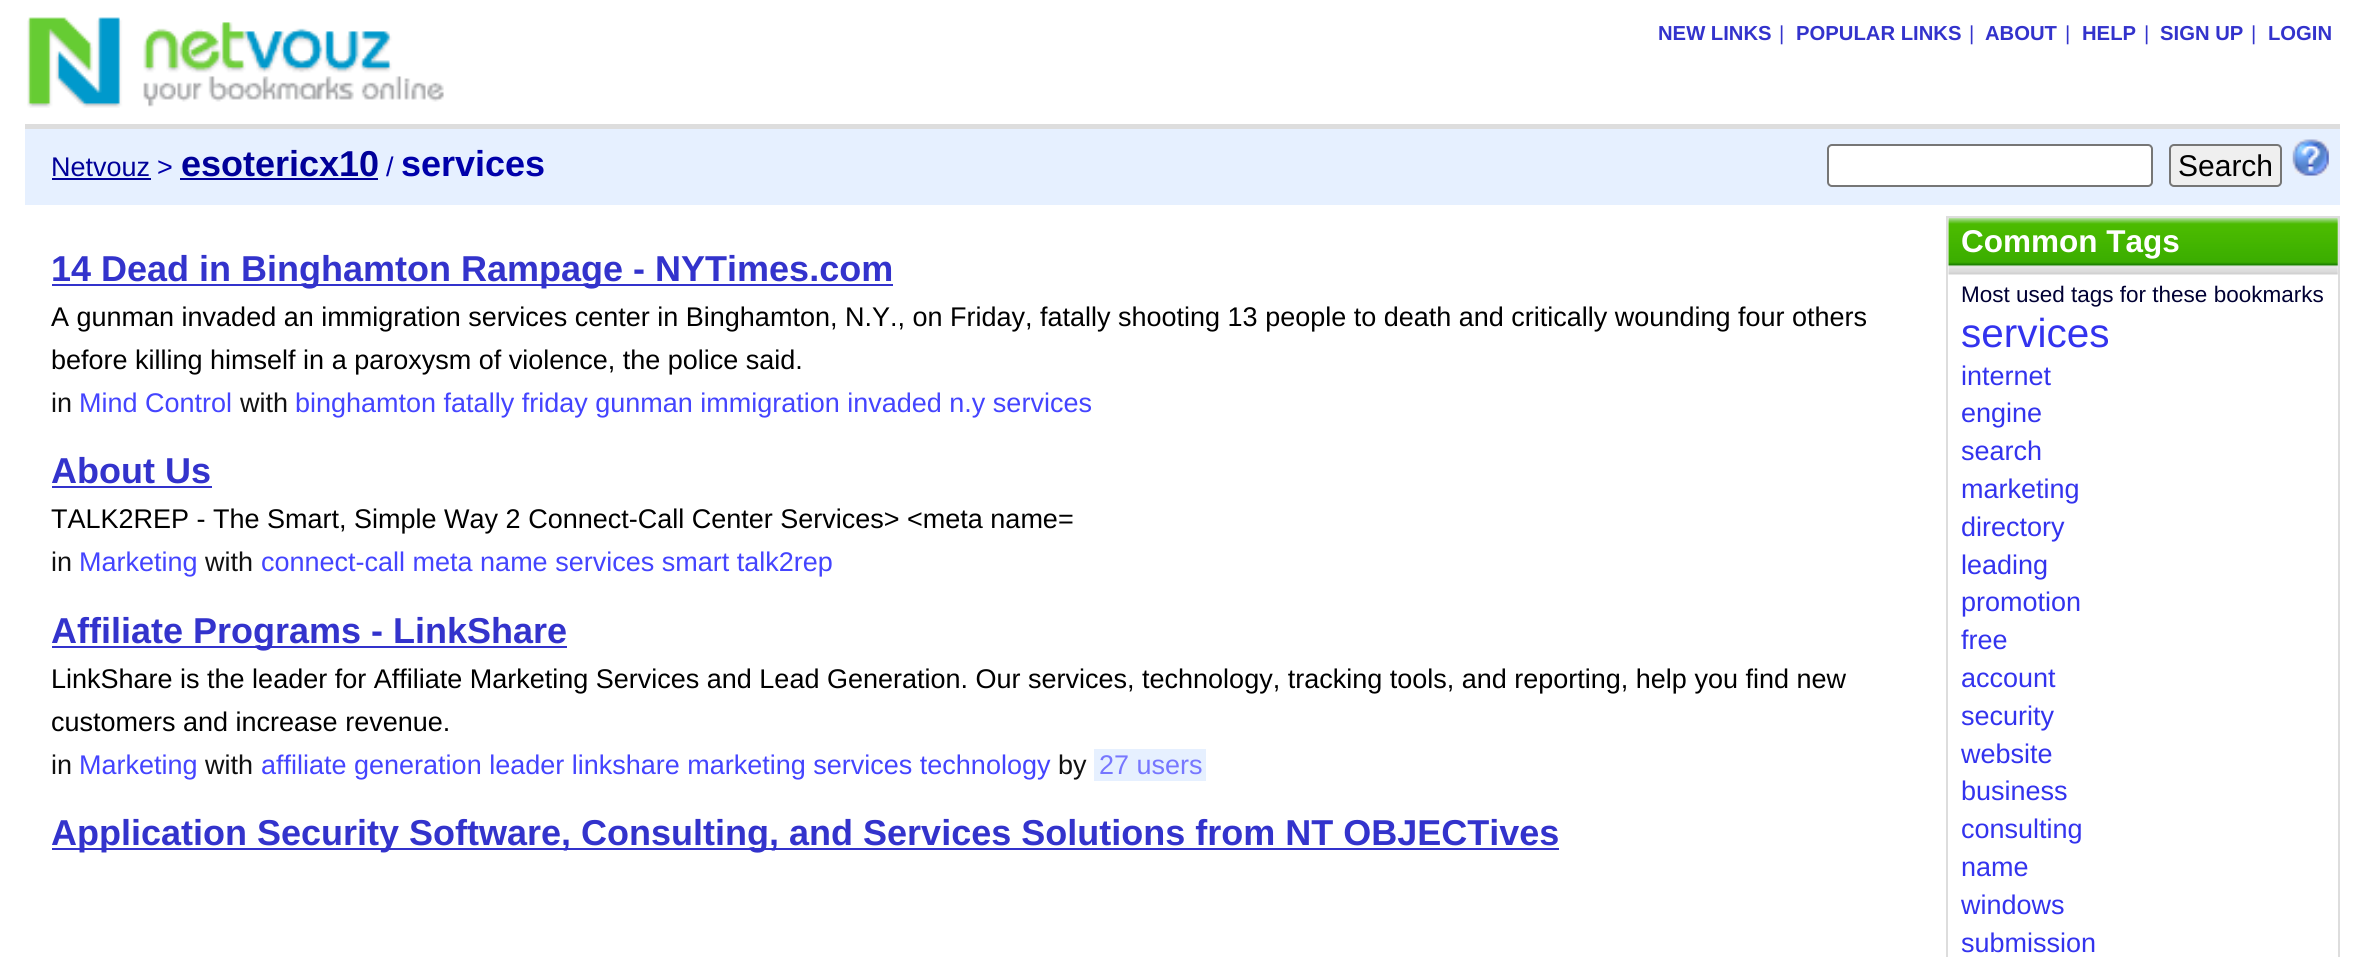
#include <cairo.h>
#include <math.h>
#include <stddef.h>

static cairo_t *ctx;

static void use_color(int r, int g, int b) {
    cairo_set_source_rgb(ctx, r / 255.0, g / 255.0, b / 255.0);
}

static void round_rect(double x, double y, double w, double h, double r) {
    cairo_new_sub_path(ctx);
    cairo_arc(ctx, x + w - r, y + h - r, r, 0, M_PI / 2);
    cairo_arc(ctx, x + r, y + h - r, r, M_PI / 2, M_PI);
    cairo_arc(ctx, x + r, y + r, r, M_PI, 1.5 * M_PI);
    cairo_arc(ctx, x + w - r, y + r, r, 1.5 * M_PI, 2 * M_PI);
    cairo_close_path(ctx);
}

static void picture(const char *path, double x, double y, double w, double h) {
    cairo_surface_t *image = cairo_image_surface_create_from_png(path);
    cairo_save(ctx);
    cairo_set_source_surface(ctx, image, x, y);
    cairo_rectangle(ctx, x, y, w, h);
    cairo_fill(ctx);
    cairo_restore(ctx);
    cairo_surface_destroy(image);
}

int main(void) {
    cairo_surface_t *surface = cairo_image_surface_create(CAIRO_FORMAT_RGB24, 2364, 957);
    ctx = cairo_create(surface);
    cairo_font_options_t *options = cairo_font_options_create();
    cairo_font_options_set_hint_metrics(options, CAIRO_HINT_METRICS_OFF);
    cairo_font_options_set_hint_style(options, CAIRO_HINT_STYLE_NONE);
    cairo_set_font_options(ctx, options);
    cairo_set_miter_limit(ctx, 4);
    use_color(255, 255, 255);
    cairo_paint(ctx);
    use_color(221, 221, 221);
    cairo_rectangle(ctx, 25, 124, 2315, 5);
    cairo_fill(ctx);
    picture("img1.png", 27, 17, 417, 91);
    cairo_select_font_face(ctx, "Liberation Sans", CAIRO_FONT_SLANT_NORMAL, CAIRO_FONT_WEIGHT_BOLD);
    cairo_set_font_size(ctx, 20.25);
    use_color(51, 51, 204);
    cairo_move_to(ctx, 1658, 40);
    cairo_show_text(ctx, "NEW LINKS");
    cairo_select_font_face(ctx, "Liberation Sans", CAIRO_FONT_SLANT_NORMAL, CAIRO_FONT_WEIGHT_NORMAL);
    cairo_move_to(ctx, 1779, 40);
    cairo_show_text(ctx, "|");
    cairo_select_font_face(ctx, "Liberation Sans", CAIRO_FONT_SLANT_NORMAL, CAIRO_FONT_WEIGHT_BOLD);
    cairo_move_to(ctx, 1796, 40);
    cairo_show_text(ctx, "POPULAR LINKS");
    cairo_select_font_face(ctx, "Liberation Sans", CAIRO_FONT_SLANT_NORMAL, CAIRO_FONT_WEIGHT_NORMAL);
    cairo_move_to(ctx, 1969, 40);
    cairo_show_text(ctx, "|");
    cairo_select_font_face(ctx, "Liberation Sans", CAIRO_FONT_SLANT_NORMAL, CAIRO_FONT_WEIGHT_BOLD);
    cairo_move_to(ctx, 1985, 40);
    cairo_show_text(ctx, "ABOUT");
    cairo_select_font_face(ctx, "Liberation Sans", CAIRO_FONT_SLANT_NORMAL, CAIRO_FONT_WEIGHT_NORMAL);
    cairo_move_to(ctx, 2065, 40);
    cairo_show_text(ctx, "|");
    cairo_select_font_face(ctx, "Liberation Sans", CAIRO_FONT_SLANT_NORMAL, CAIRO_FONT_WEIGHT_BOLD);
    cairo_move_to(ctx, 2082, 40);
    cairo_show_text(ctx, "HELP");
    cairo_select_font_face(ctx, "Liberation Sans", CAIRO_FONT_SLANT_NORMAL, CAIRO_FONT_WEIGHT_NORMAL);
    cairo_move_to(ctx, 2144, 40);
    cairo_show_text(ctx, "|");
    cairo_select_font_face(ctx, "Liberation Sans", CAIRO_FONT_SLANT_NORMAL, CAIRO_FONT_WEIGHT_BOLD);
    cairo_move_to(ctx, 2160, 40);
    cairo_show_text(ctx, "SIGN UP");
    cairo_select_font_face(ctx, "Liberation Sans", CAIRO_FONT_SLANT_NORMAL, CAIRO_FONT_WEIGHT_NORMAL);
    cairo_move_to(ctx, 2251, 40);
    cairo_show_text(ctx, "|");
    cairo_select_font_face(ctx, "Liberation Sans", CAIRO_FONT_SLANT_NORMAL, CAIRO_FONT_WEIGHT_BOLD);
    cairo_move_to(ctx, 2268, 40);
    cairo_show_text(ctx, "LOGIN");
    use_color(230, 240, 255);
    cairo_rectangle(ctx, 25, 129, 2315, 76);
    cairo_fill(ctx);
    cairo_select_font_face(ctx, "Liberation Sans", CAIRO_FONT_SLANT_NORMAL, CAIRO_FONT_WEIGHT_NORMAL);
    cairo_set_font_size(ctx, 27);
    use_color(0, 0, 153);
    cairo_move_to(ctx, 51, 176);
    cairo_show_text(ctx, "Netvouz");
    cairo_rectangle(ctx, 52, 178, 99, 2);
    cairo_fill(ctx);
    use_color(0, 0, 170);
    cairo_move_to(ctx, 157, 176);
    cairo_show_text(ctx, ">");
    use_color(0, 0, 153);
    cairo_rectangle(ctx, 180, 178, 198, 2);
    cairo_fill(ctx);
    cairo_select_font_face(ctx, "Liberation Sans", CAIRO_FONT_SLANT_NORMAL, CAIRO_FONT_WEIGHT_BOLD);
    cairo_set_font_size(ctx, 36);
    cairo_move_to(ctx, 181, 176);
    cairo_show_text(ctx, "esotericx10");
    cairo_select_font_face(ctx, "Liberation Sans", CAIRO_FONT_SLANT_NORMAL, CAIRO_FONT_WEIGHT_NORMAL);
    cairo_set_font_size(ctx, 27);
    use_color(0, 0, 170);
    cairo_move_to(ctx, 386, 176);
    cairo_show_text(ctx, "/");
    cairo_select_font_face(ctx, "Liberation Sans", CAIRO_FONT_SLANT_NORMAL, CAIRO_FONT_WEIGHT_BOLD);
    cairo_set_font_size(ctx, 36);
    cairo_move_to(ctx, 401, 176);
    cairo_show_text(ctx, "services");
    use_color(255, 255, 255);
    round_rect(1828, 145, 324, 41, 4);
    cairo_fill_preserve(ctx);
    use_color(118, 118, 118);
    cairo_stroke(ctx);
    use_color(239, 239, 239);
    round_rect(2170, 145, 111, 41, 4);
    cairo_fill_preserve(ctx);
    use_color(118, 118, 118);
    cairo_stroke(ctx);
    cairo_select_font_face(ctx, "Liberation Sans", CAIRO_FONT_SLANT_NORMAL, CAIRO_FONT_WEIGHT_NORMAL);
    cairo_set_font_size(ctx, 30);
    use_color(0, 0, 0);
    cairo_move_to(ctx, 2178, 176);
    cairo_show_text(ctx, "Search");
    picture("img2.png", 2292, 139, 37, 37);
    use_color(51, 51, 204);
    cairo_rectangle(ctx, 52, 284, 841, 2);
    cairo_fill(ctx);
    cairo_select_font_face(ctx, "Liberation Sans", CAIRO_FONT_SLANT_NORMAL, CAIRO_FONT_WEIGHT_BOLD);
    cairo_set_font_size(ctx, 36);
    cairo_move_to(ctx, 51, 281);
    cairo_show_text(ctx, "14 Dead in Binghamton Rampage - NYTimes.com");
    cairo_select_font_face(ctx, "Liberation Sans", CAIRO_FONT_SLANT_NORMAL, CAIRO_FONT_WEIGHT_NORMAL);
    cairo_set_font_size(ctx, 27);
    use_color(0, 0, 0);
    cairo_move_to(ctx, 51, 326);
    cairo_show_text(ctx, "A gunman invaded an immigration services center in Binghamton, N.Y., on Friday, fatally shooting 13 people to death and critically wounding four others");
    cairo_move_to(ctx, 51, 369);
    cairo_show_text(ctx, "before killing himself in a paroxysm of violence, the police said.");
    use_color(17, 17, 17);
    cairo_move_to(ctx, 51, 412);
    cairo_show_text(ctx, "in");
    use_color(68, 68, 255);
    cairo_move_to(ctx, 79, 412);
    cairo_show_text(ctx, "Mind Control");
    use_color(17, 17, 17);
    cairo_move_to(ctx, 240, 412);
    cairo_show_text(ctx, "with");
    use_color(68, 68, 255);
    cairo_move_to(ctx, 295, 412);
    cairo_show_text(ctx, "binghamton fatally friday gunman immigration invaded n.y services");
    cairo_select_font_face(ctx, "Liberation Sans", CAIRO_FONT_SLANT_NORMAL, CAIRO_FONT_WEIGHT_BOLD);
    cairo_set_font_size(ctx, 36);
    use_color(51, 51, 204);
    cairo_move_to(ctx, 51, 483);
    cairo_show_text(ctx, "About Us");
    cairo_rectangle(ctx, 52, 486, 160, 2);
    cairo_fill(ctx);
    cairo_select_font_face(ctx, "Liberation Sans", CAIRO_FONT_SLANT_NORMAL, CAIRO_FONT_WEIGHT_NORMAL);
    cairo_set_font_size(ctx, 27);
    use_color(0, 0, 0);
    cairo_move_to(ctx, 51, 528);
    cairo_show_text(ctx, "TALK2REP - The Smart, Simple Way 2 Connect-Call Center Services> <meta name=");
    use_color(17, 17, 17);
    cairo_move_to(ctx, 51, 571);
    cairo_show_text(ctx, "in");
    use_color(68, 68, 255);
    cairo_move_to(ctx, 79, 571);
    cairo_show_text(ctx, "Marketing");
    use_color(17, 17, 17);
    cairo_move_to(ctx, 205, 571);
    cairo_show_text(ctx, "with");
    use_color(68, 68, 255);
    cairo_move_to(ctx, 261, 571);
    cairo_show_text(ctx, "connect-call meta name services smart talk2rep");
    use_color(51, 51, 204);
    cairo_rectangle(ctx, 52, 646, 515, 2);
    cairo_fill(ctx);
    cairo_select_font_face(ctx, "Liberation Sans", CAIRO_FONT_SLANT_NORMAL, CAIRO_FONT_WEIGHT_BOLD);
    cairo_set_font_size(ctx, 36);
    cairo_move_to(ctx, 51, 643);
    cairo_show_text(ctx, "Affiliate Programs - LinkShare");
    cairo_select_font_face(ctx, "Liberation Sans", CAIRO_FONT_SLANT_NORMAL, CAIRO_FONT_WEIGHT_NORMAL);
    cairo_set_font_size(ctx, 27);
    use_color(0, 0, 0);
    cairo_move_to(ctx, 51, 688);
    cairo_show_text(ctx, "LinkShare is the leader for Affiliate Marketing Services and Lead Generation. Our services, technology, tracking tools, and reporting, help you find new");
    cairo_move_to(ctx, 51, 731);
    cairo_show_text(ctx, "customers and increase revenue.");
    use_color(17, 17, 17);
    cairo_move_to(ctx, 51, 774);
    cairo_show_text(ctx, "in");
    use_color(68, 68, 255);
    cairo_move_to(ctx, 79, 774);
    cairo_show_text(ctx, "Marketing");
    use_color(17, 17, 17);
    cairo_move_to(ctx, 205, 774);
    cairo_show_text(ctx, "with");
    use_color(68, 68, 255);
    cairo_move_to(ctx, 261, 774);
    cairo_show_text(ctx, "affiliate generation leader linkshare marketing services technology");
    use_color(17, 17, 17);
    cairo_move_to(ctx, 1058, 774);
    cairo_show_text(ctx, "by");
    use_color(230, 240, 255);
    cairo_rectangle(ctx, 1094, 749, 112, 32);
    cairo_fill(ctx);
    use_color(119, 119, 255);
    cairo_move_to(ctx, 1099, 774);
    cairo_show_text(ctx, "27 users");
    use_color(51, 51, 204);
    cairo_rectangle(ctx, 52, 848, 1507, 2);
    cairo_fill(ctx);
    cairo_select_font_face(ctx, "Liberation Sans", CAIRO_FONT_SLANT_NORMAL, CAIRO_FONT_WEIGHT_BOLD);
    cairo_set_font_size(ctx, 36);
    cairo_move_to(ctx, 51, 845);
    cairo_show_text(ctx, "Application Security Software, Consulting, and Services Solutions from NT OBJECTives");
    cairo_rectangle(ctx, 1947, 217, 392, 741);
    use_color(221, 221, 221);
    cairo_stroke(ctx);
    picture("img3.png", 1948, 218, 390, 57);
    cairo_set_font_size(ctx, 31.5);
    use_color(255, 255, 255);
    cairo_move_to(ctx, 1961, 252);
    cairo_show_text(ctx, "Common Tags");
    cairo_select_font_face(ctx, "Liberation Sans", CAIRO_FONT_SLANT_NORMAL, CAIRO_FONT_WEIGHT_NORMAL);
    cairo_set_font_size(ctx, 22.5);
    use_color(0, 0, 51);
    cairo_move_to(ctx, 1961, 302);
    cairo_show_text(ctx, "Most used tags for these bookmarks");
    cairo_set_font_size(ctx, 40.5);
    use_color(51, 51, 238);
    cairo_move_to(ctx, 1961, 347);
    cairo_show_text(ctx, "services");
    cairo_set_font_size(ctx, 27);
    cairo_move_to(ctx, 1961, 385);
    cairo_show_text(ctx, "internet");
    cairo_move_to(ctx, 1961, 422);
    cairo_show_text(ctx, "engine");
    cairo_move_to(ctx, 1961, 460);
    cairo_show_text(ctx, "search");
    cairo_move_to(ctx, 1961, 498);
    cairo_show_text(ctx, "marketing");
    cairo_move_to(ctx, 1961, 536);
    cairo_show_text(ctx, "directory");
    cairo_move_to(ctx, 1961, 574);
    cairo_show_text(ctx, "leading");
    cairo_move_to(ctx, 1961, 611);
    cairo_show_text(ctx, "promotion");
    cairo_move_to(ctx, 1961, 649);
    cairo_show_text(ctx, "free");
    cairo_move_to(ctx, 1961, 687);
    cairo_show_text(ctx, "account");
    cairo_move_to(ctx, 1961, 725);
    cairo_show_text(ctx, "security");
    cairo_move_to(ctx, 1961, 763);
    cairo_show_text(ctx, "website");
    cairo_move_to(ctx, 1961, 800);
    cairo_show_text(ctx, "business");
    cairo_move_to(ctx, 1961, 838);
    cairo_show_text(ctx, "consulting");
    cairo_move_to(ctx, 1961, 876);
    cairo_show_text(ctx, "name");
    cairo_move_to(ctx, 1961, 914);
    cairo_show_text(ctx, "windows");
    cairo_move_to(ctx, 1961, 952);
    cairo_show_text(ctx, "submission");
    cairo_surface_write_to_png(surface, "result.png");
    cairo_font_options_destroy(options);
    cairo_destroy(ctx);
    cairo_surface_destroy(surface);
    return 0;
}
